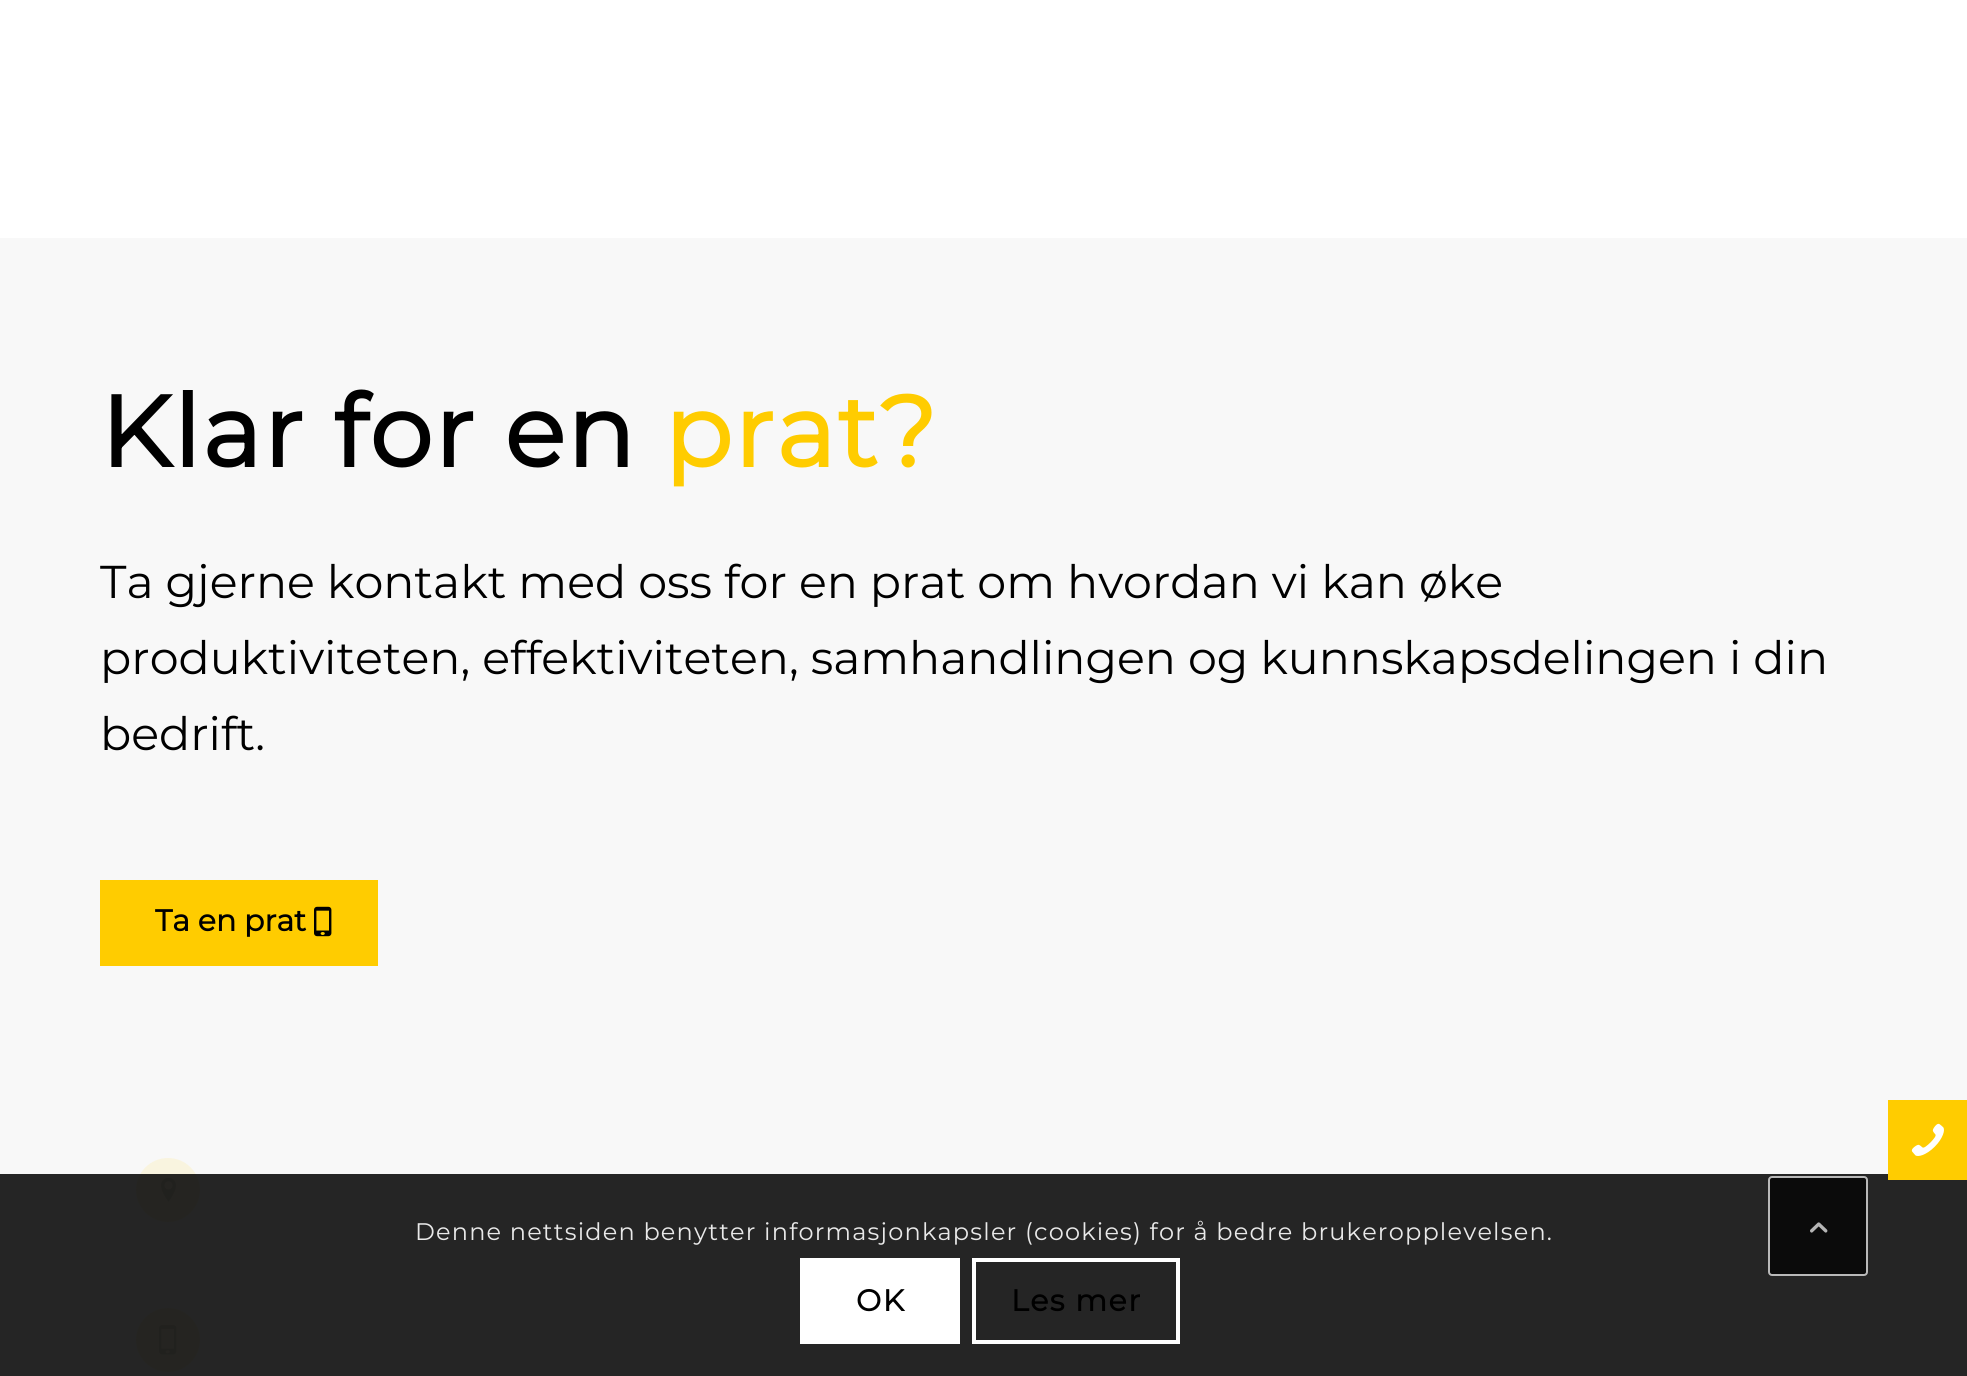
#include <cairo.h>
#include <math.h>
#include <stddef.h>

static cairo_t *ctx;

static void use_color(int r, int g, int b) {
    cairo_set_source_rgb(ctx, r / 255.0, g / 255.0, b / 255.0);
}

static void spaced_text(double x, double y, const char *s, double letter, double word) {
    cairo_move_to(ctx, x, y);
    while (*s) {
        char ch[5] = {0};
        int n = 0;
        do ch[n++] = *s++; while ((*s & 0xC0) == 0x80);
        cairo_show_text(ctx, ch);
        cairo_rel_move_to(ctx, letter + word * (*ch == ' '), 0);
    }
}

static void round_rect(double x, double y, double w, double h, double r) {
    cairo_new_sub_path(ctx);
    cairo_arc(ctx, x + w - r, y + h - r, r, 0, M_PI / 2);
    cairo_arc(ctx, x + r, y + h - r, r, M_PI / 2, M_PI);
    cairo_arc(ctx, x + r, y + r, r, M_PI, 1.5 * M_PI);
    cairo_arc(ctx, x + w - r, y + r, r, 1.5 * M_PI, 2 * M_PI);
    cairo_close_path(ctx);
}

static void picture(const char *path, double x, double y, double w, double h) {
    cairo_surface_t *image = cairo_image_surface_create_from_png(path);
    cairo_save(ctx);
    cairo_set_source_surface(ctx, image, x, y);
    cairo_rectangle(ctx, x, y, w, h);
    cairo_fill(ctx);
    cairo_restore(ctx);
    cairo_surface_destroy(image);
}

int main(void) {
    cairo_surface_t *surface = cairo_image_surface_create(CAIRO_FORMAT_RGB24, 1967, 1376);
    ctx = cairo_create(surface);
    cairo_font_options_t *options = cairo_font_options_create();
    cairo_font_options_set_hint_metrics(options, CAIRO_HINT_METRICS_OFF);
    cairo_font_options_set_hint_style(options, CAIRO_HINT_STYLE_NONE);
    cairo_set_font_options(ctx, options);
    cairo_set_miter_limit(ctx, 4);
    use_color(255, 255, 255);
    cairo_paint(ctx);
    use_color(248, 248, 248);
    cairo_rectangle(ctx, 0, 238, 1967, 1138);
    cairo_fill(ctx);
    cairo_select_font_face(ctx, "Montserrat", CAIRO_FONT_SLANT_NORMAL, CAIRO_FONT_WEIGHT_BOLD);
    cairo_set_font_size(ctx, 100);
    use_color(0, 0, 0);
    spaced_text(100, 467, "Klar for en", 2, 0);
    use_color(255, 204, 0);
    spaced_text(664, 467, "prat?", 2, 0);
    cairo_select_font_face(ctx, "Montserrat Thin", CAIRO_FONT_SLANT_NORMAL, CAIRO_FONT_WEIGHT_NORMAL);
    cairo_set_font_size(ctx, 46);
    use_color(0, 0, 0);
    cairo_move_to(ctx, 100, 598);
    cairo_show_text(ctx, "Ta gjerne kontakt med oss for en prat om hvordan vi kan øke");
    cairo_move_to(ctx, 100, 674);
    cairo_show_text(ctx, "produktiviteten, effektiviteten, samhandlingen og kunnskapsdelingen i din");
    cairo_move_to(ctx, 100, 750);
    cairo_show_text(ctx, "bedrift.");
    use_color(255, 204, 0);
    cairo_rectangle(ctx, 100, 880, 278, 86);
    cairo_fill(ctx);
    cairo_select_font_face(ctx, "Montserrat", CAIRO_FONT_SLANT_NORMAL, CAIRO_FONT_WEIGHT_BOLD);
    cairo_set_font_size(ctx, 30);
    use_color(0, 0, 0);
    cairo_move_to(ctx, 155, 931);
    cairo_show_text(ctx, "Ta en prat");
    picture("img1.png", 314, 906, 18, 31);
    use_color(249, 244, 223);
    cairo_arc(ctx, 168, 1190, 32, 0, 2 * M_PI);
    cairo_fill(ctx);
    picture("img2.png", 161, 1178, 15, 24);
    cairo_arc(ctx, 168, 1340, 32, 0, 2 * M_PI);
    cairo_fill(ctx);
    picture("img3.png", 159, 1325, 18, 30);
    cairo_set_source_rgba(ctx, 0, 0, 0, 0.85);
    cairo_rectangle(ctx, 0, 1174, 1967, 202);
    cairo_fill(ctx);
    use_color(255, 204, 0);
    cairo_rectangle(ctx, 1888, 1100, 79, 80);
    cairo_fill(ctx);
    picture("img4.png", 1911, 1123, 33, 33);
    cairo_select_font_face(ctx, "Montserrat Thin", CAIRO_FONT_SLANT_NORMAL, CAIRO_FONT_WEIGHT_NORMAL);
    cairo_set_font_size(ctx, 24);
    use_color(233, 233, 233);
    spaced_text(415, 1240, "Denne nettsiden benytter informasjonkapsler (cookies) for å bedre brukeropplevelsen.", 1.2, 0);
    use_color(255, 255, 255);
    cairo_rectangle(ctx, 800, 1258, 160, 86);
    cairo_fill(ctx);
    cairo_select_font_face(ctx, "Montserrat", CAIRO_FONT_SLANT_NORMAL, CAIRO_FONT_WEIGHT_BOLD);
    cairo_set_font_size(ctx, 30);
    use_color(0, 0, 0);
    spaced_text(856, 1311, "OK", 1.5, 0);
    cairo_rectangle(ctx, 974, 1260, 204, 82);
    use_color(255, 255, 255);
    cairo_set_line_width(ctx, 4);
    cairo_stroke(ctx);
    use_color(0, 0, 0);
    spaced_text(1011, 1311, "Les mer", 1.5, 0);
    use_color(11, 11, 11);
    round_rect(1769, 1177, 98, 98, 3);
    cairo_fill_preserve(ctx);
    use_color(185, 185, 185);
    cairo_set_line_width(ctx, 2);
    cairo_stroke(ctx);
    picture("img5.png", 1810, 1222, 18, 11);
    cairo_surface_write_to_png(surface, "result.png");
    cairo_font_options_destroy(options);
    cairo_destroy(ctx);
    cairo_surface_destroy(surface);
    return 0;
}
